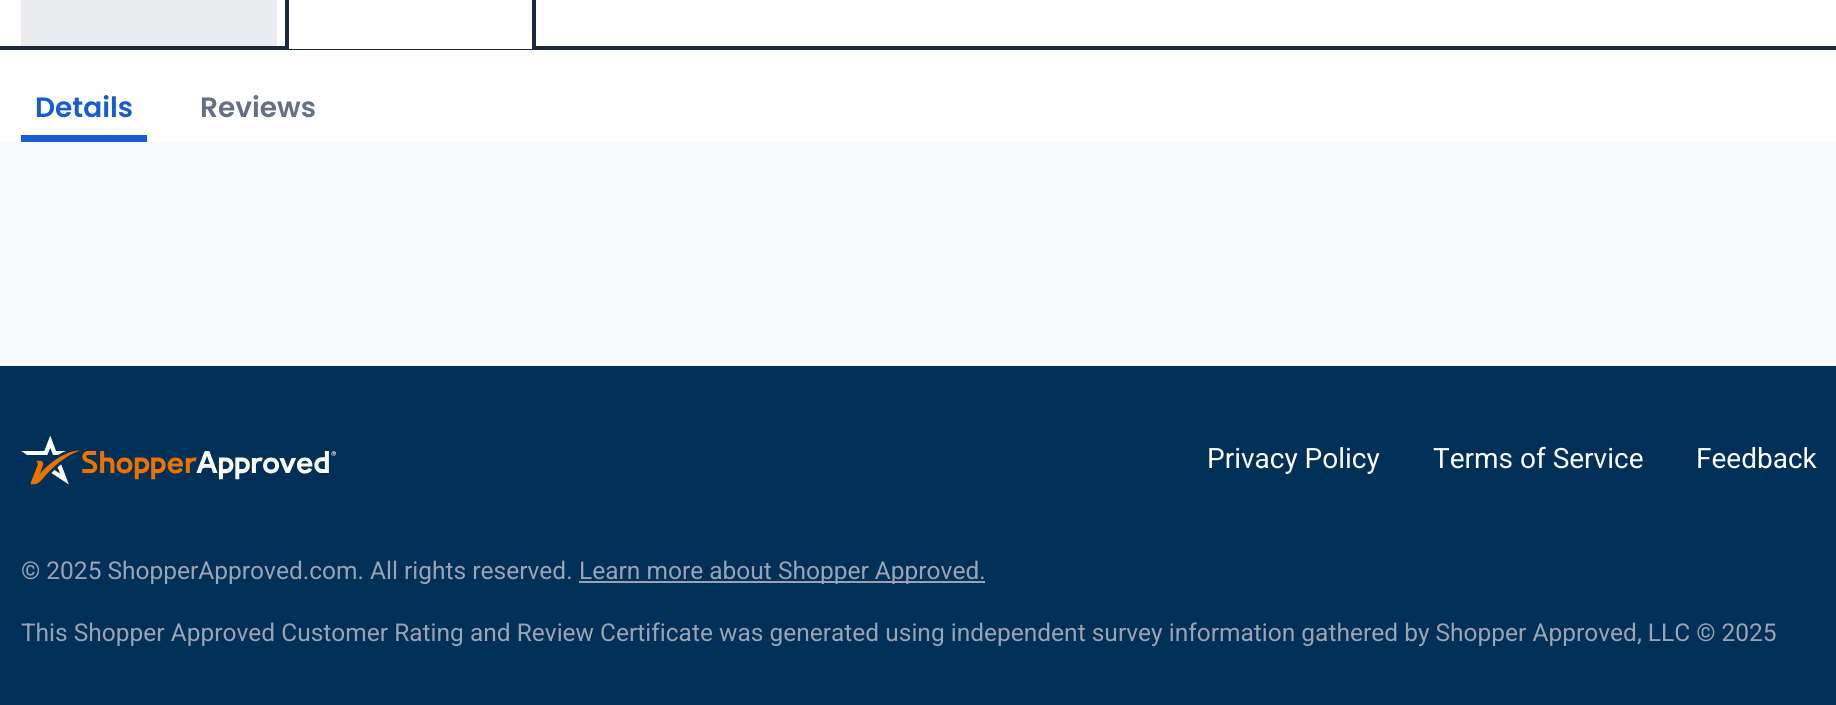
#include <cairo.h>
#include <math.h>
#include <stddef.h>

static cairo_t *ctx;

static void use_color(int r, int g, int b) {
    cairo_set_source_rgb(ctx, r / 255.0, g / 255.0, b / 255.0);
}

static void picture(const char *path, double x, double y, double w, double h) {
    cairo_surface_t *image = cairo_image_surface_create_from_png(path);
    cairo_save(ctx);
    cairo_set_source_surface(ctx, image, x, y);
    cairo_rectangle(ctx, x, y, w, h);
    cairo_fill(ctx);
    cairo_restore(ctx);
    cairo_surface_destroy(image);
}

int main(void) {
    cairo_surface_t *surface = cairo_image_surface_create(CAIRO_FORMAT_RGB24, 1836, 705);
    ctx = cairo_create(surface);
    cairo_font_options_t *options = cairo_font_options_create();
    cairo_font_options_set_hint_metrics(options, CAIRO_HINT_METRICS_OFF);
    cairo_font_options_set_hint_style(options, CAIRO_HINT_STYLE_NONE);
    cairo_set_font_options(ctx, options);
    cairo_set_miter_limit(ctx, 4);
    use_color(255, 255, 255);
    cairo_paint(ctx);
    use_color(29, 41, 57);
    cairo_rectangle(ctx, 0, 46, 1836, 4);
    cairo_fill(ctx);
    use_color(234, 236, 240);
    cairo_rectangle(ctx, 21, 0, 256, 46);
    cairo_fill(ctx);
    use_color(255, 255, 255);
    cairo_rectangle(ctx, 289, 46, 243, 3);
    cairo_fill(ctx);
    use_color(29, 41, 57);
    cairo_set_fill_rule(ctx, CAIRO_FILL_RULE_EVEN_ODD);
    cairo_new_path(ctx);
    cairo_move_to(ctx, 299, -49);
    cairo_line_to(ctx, 522, -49);
    cairo_curve_to(ctx, 529, -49, 536, -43, 536, -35);
    cairo_line_to(ctx, 536, 49);
    cairo_line_to(ctx, 285, 49);
    cairo_line_to(ctx, 285, -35);
    cairo_curve_to(ctx, 285, -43, 292, -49, 299, -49);
    cairo_close_path(ctx);
    cairo_move_to(ctx, 299, -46);
    cairo_line_to(ctx, 522, -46);
    cairo_curve_to(ctx, 527, -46, 532, -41, 532, -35);
    cairo_line_to(ctx, 532, 49);
    cairo_line_to(ctx, 289, 49);
    cairo_line_to(ctx, 289, -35);
    cairo_curve_to(ctx, 289, -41, 293, -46, 299, -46);
    cairo_close_path(ctx);
    cairo_fill(ctx);
    cairo_select_font_face(ctx, "Poppins SemiBold", CAIRO_FONT_SLANT_NORMAL, CAIRO_FONT_WEIGHT_NORMAL);
    cairo_set_font_size(ctx, 28);
    use_color(23, 92, 211);
    cairo_move_to(ctx, 35, 117);
    cairo_show_text(ctx, "Details");
    cairo_rectangle(ctx, 21, 135, 126, 7);
    cairo_fill(ctx);
    use_color(102, 112, 133);
    cairo_move_to(ctx, 200, 117);
    cairo_show_text(ctx, "Reviews");
    use_color(249, 250, 251);
    cairo_rectangle(ctx, 0, 142, 1836, 224);
    cairo_fill(ctx);
    use_color(0, 48, 87);
    cairo_rectangle(ctx, 0, 366, 1836, 339);
    cairo_fill(ctx);
    picture("img1.png", 21, 436, 315, 49);
    cairo_select_font_face(ctx, "Roboto", CAIRO_FONT_SLANT_NORMAL, CAIRO_FONT_WEIGHT_NORMAL);
    use_color(255, 255, 255);
    cairo_move_to(ctx, 1207, 468);
    cairo_show_text(ctx, "Privacy Policy");
    cairo_move_to(ctx, 1433, 468);
    cairo_show_text(ctx, "Terms of Service");
    cairo_move_to(ctx, 1696, 468);
    cairo_show_text(ctx, "Feedback");
    cairo_set_font_size(ctx, 24.5);
    use_color(152, 162, 179);
    cairo_move_to(ctx, 21, 579);
    cairo_show_text(ctx, "© 2025 ShopperApproved.com. All rights reserved.");
    cairo_rectangle(ctx, 579, 581, 406, 2);
    cairo_fill(ctx);
    cairo_move_to(ctx, 579, 579);
    cairo_show_text(ctx, "Learn more about Shopper Approved.");
    cairo_move_to(ctx, 21, 641);
    cairo_show_text(ctx, "This Shopper Approved Customer Rating and Review Certificate was generated using independent survey information gathered by Shopper Approved, LLC © 2025");
    cairo_surface_write_to_png(surface, "result.png");
    cairo_font_options_destroy(options);
    cairo_destroy(ctx);
    cairo_surface_destroy(surface);
    return 0;
}
